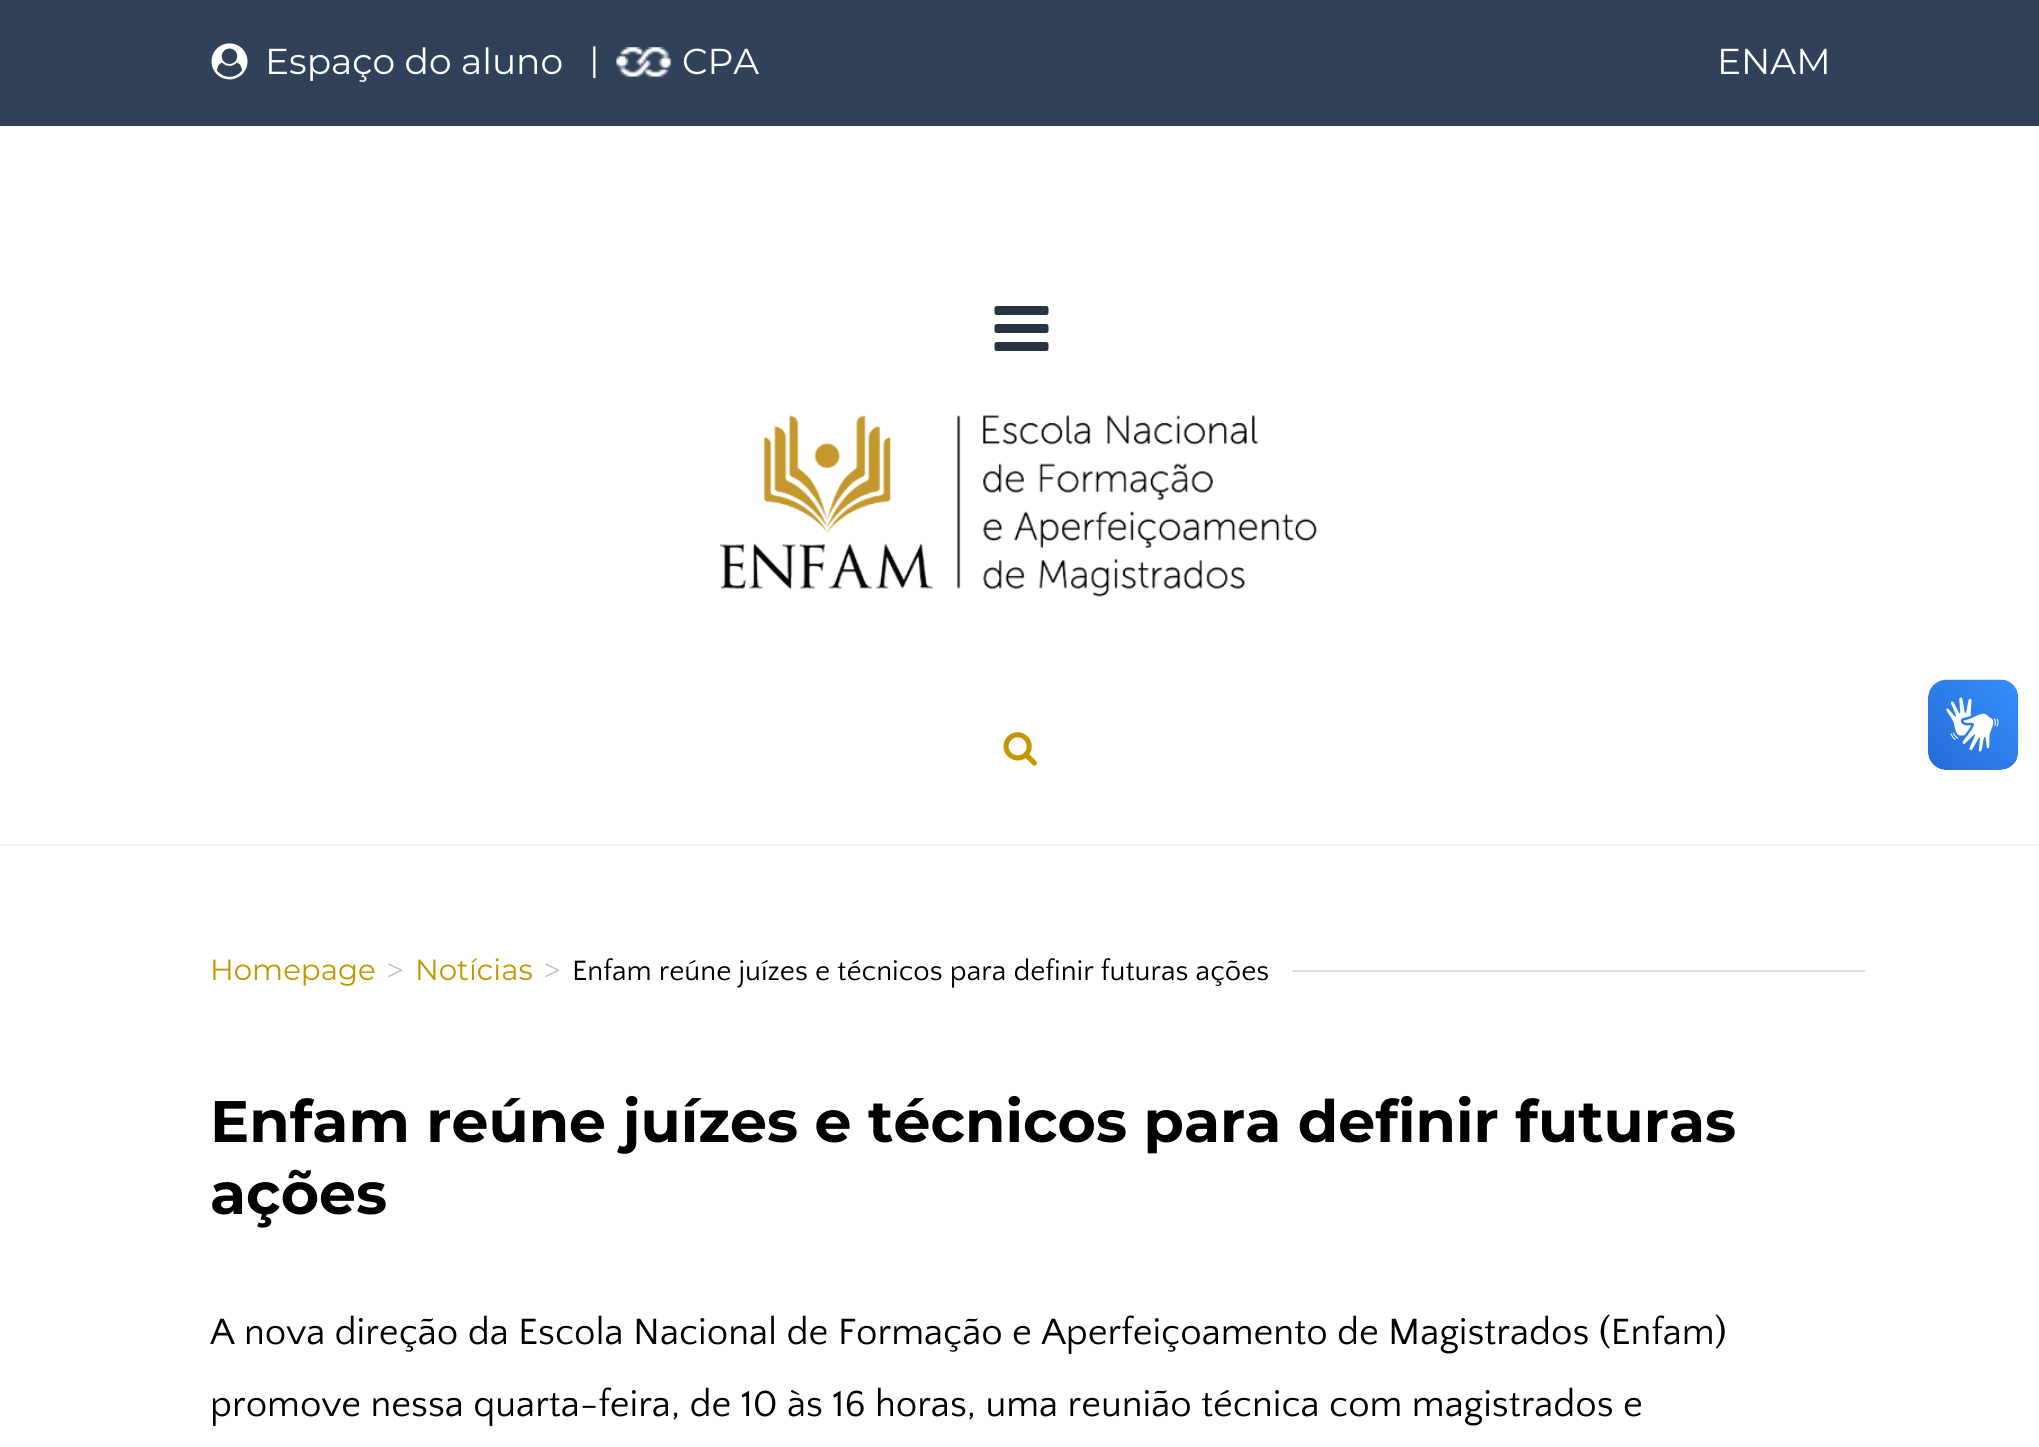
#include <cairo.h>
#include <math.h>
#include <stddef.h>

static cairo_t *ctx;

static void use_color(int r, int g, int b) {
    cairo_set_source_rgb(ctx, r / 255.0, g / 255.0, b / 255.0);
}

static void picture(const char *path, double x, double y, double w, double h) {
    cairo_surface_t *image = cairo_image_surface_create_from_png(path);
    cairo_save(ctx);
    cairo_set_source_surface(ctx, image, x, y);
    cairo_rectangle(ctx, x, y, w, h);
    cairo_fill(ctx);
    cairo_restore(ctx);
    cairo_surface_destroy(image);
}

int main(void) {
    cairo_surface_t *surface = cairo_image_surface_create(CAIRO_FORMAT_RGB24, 2039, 1447);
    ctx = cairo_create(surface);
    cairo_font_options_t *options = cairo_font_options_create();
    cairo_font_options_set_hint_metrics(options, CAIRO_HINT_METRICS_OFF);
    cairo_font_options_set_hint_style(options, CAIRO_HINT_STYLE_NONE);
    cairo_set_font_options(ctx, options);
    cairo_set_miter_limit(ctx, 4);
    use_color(255, 255, 255);
    cairo_paint(ctx);
    use_color(49, 65, 90);
    cairo_rectangle(ctx, 0, 0, 2039, 126);
    cairo_fill(ctx);
    picture("img1.png", 211, 43, 37, 37);
    cairo_select_font_face(ctx, "Montserrat", CAIRO_FONT_SLANT_NORMAL, CAIRO_FONT_WEIGHT_NORMAL);
    cairo_set_font_size(ctx, 36);
    use_color(255, 255, 255);
    cairo_move_to(ctx, 265, 74);
    cairo_show_text(ctx, "Espaço do aluno");
    cairo_select_font_face(ctx, "Quattrocento Sans", CAIRO_FONT_SLANT_NORMAL, CAIRO_FONT_WEIGHT_NORMAL);
    cairo_move_to(ctx, 590, 74);
    cairo_show_text(ctx, "|");
    picture("img2.png", 616, 47, 56, 31);
    cairo_select_font_face(ctx, "Montserrat", CAIRO_FONT_SLANT_NORMAL, CAIRO_FONT_WEIGHT_NORMAL);
    cairo_move_to(ctx, 682, 74);
    cairo_show_text(ctx, "CPA");
    cairo_move_to(ctx, 1717, 74);
    cairo_show_text(ctx, "ENAM");
    picture("img3.png", 994, 306, 55, 45);
    picture("img4.png", 720, 415, 597, 182);
    picture("img5.png", 1003, 732, 34, 34);
    use_color(243, 243, 244);
    cairo_rectangle(ctx, 0, 844, 2039, 2);
    cairo_fill(ctx);
    cairo_set_font_size(ctx, 29.25);
    use_color(196, 150, 2);
    cairo_move_to(ctx, 210, 980);
    cairo_show_text(ctx, "Homepage");
    cairo_select_font_face(ctx, "Liberation Serif", CAIRO_FONT_SLANT_NORMAL, CAIRO_FONT_WEIGHT_NORMAL);
    use_color(182, 184, 185);
    cairo_move_to(ctx, 387, 980);
    cairo_show_text(ctx, ">");
    cairo_select_font_face(ctx, "Montserrat", CAIRO_FONT_SLANT_NORMAL, CAIRO_FONT_WEIGHT_NORMAL);
    use_color(196, 150, 2);
    cairo_move_to(ctx, 415, 980);
    cairo_show_text(ctx, "Notícias");
    cairo_select_font_face(ctx, "Liberation Serif", CAIRO_FONT_SLANT_NORMAL, CAIRO_FONT_WEIGHT_NORMAL);
    use_color(182, 184, 185);
    cairo_move_to(ctx, 544, 980);
    cairo_show_text(ctx, ">");
    cairo_select_font_face(ctx, "Quattrocento Sans", CAIRO_FONT_SLANT_NORMAL, CAIRO_FONT_WEIGHT_NORMAL);
    use_color(0, 0, 0);
    cairo_move_to(ctx, 572, 980);
    cairo_show_text(ctx, "Enfam reúne juízes e técnicos para definir futuras ações");
    use_color(222, 224, 225);
    cairo_rectangle(ctx, 1292, 970, 573, 2);
    cairo_fill(ctx);
    cairo_select_font_face(ctx, "Montserrat", CAIRO_FONT_SLANT_NORMAL, CAIRO_FONT_WEIGHT_BOLD);
    cairo_set_font_size(ctx, 58.5);
    use_color(0, 0, 0);
    cairo_move_to(ctx, 210, 1142);
    cairo_show_text(ctx, "Enfam reúne juízes e técnicos para definir futuras");
    cairo_move_to(ctx, 210, 1214);
    cairo_show_text(ctx, "ações");
    cairo_select_font_face(ctx, "Quattrocento Sans", CAIRO_FONT_SLANT_NORMAL, CAIRO_FONT_WEIGHT_NORMAL);
    cairo_set_font_size(ctx, 38.25);
    cairo_move_to(ctx, 210, 1344);
    cairo_show_text(ctx, "A nova direção da Escola Nacional de Formação e Aperfeiçoamento de Magistrados (Enfam)");
    cairo_move_to(ctx, 210, 1416);
    cairo_show_text(ctx, "promove nessa quarta-feira, de 10 às 16 horas, uma reunião técnica com magistrados e");
    picture("img6.png", 1928, 679, 91, 91);
    picture("img7.png", 1928, 680, 90, 90);
    cairo_surface_write_to_png(surface, "result.png");
    cairo_font_options_destroy(options);
    cairo_destroy(ctx);
    cairo_surface_destroy(surface);
    return 0;
}
